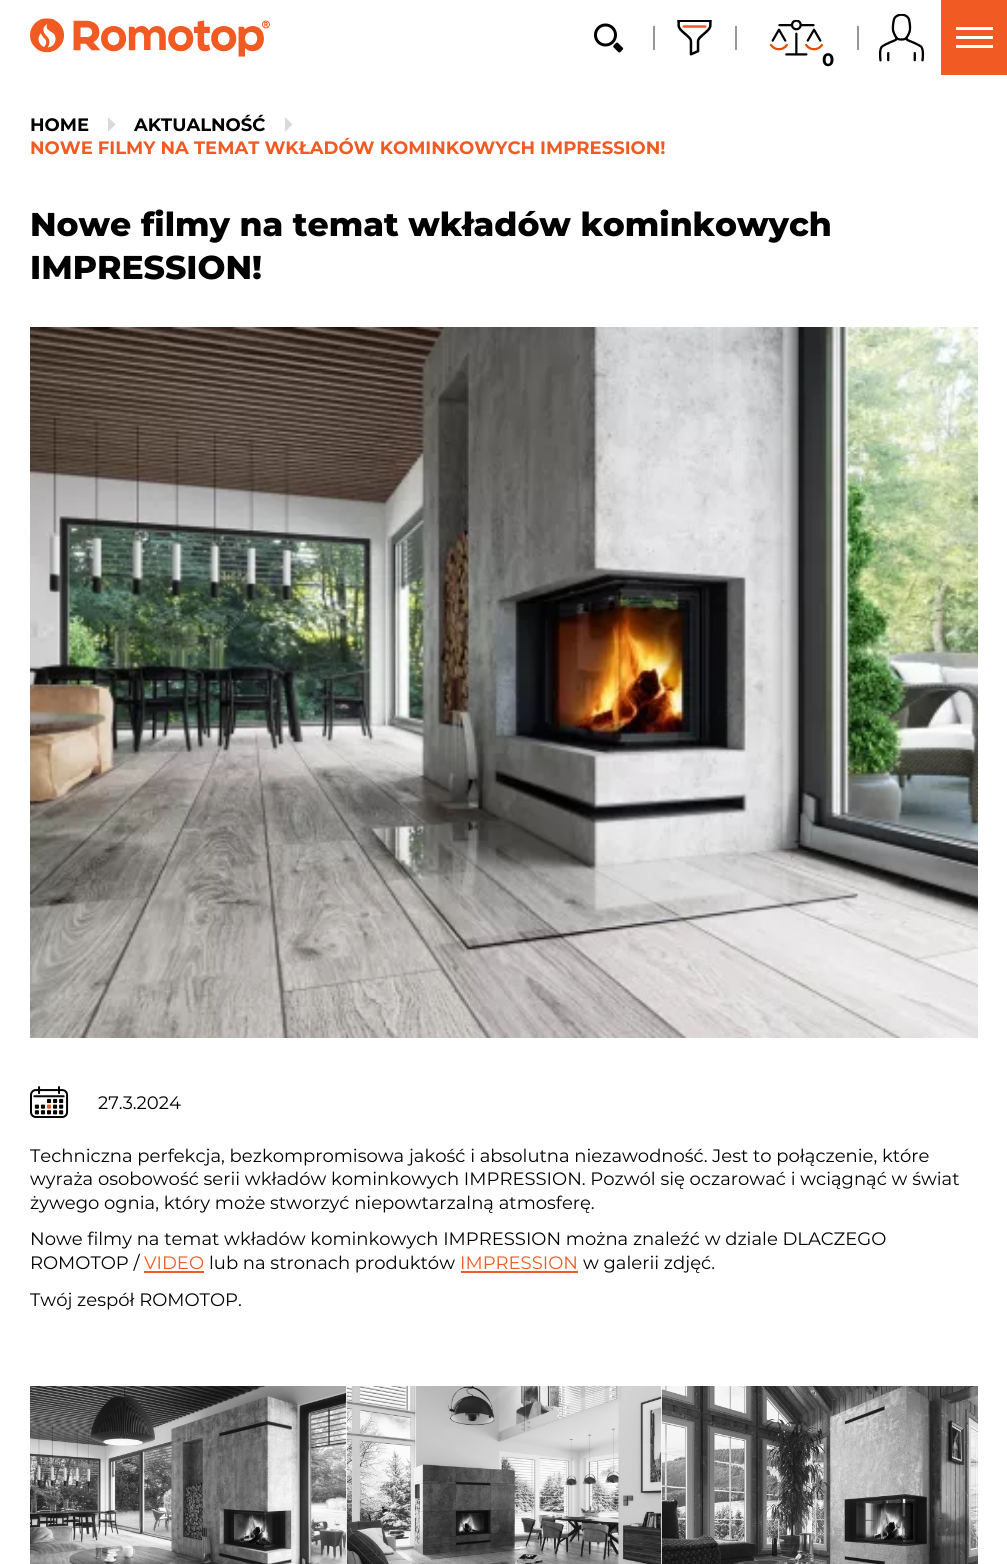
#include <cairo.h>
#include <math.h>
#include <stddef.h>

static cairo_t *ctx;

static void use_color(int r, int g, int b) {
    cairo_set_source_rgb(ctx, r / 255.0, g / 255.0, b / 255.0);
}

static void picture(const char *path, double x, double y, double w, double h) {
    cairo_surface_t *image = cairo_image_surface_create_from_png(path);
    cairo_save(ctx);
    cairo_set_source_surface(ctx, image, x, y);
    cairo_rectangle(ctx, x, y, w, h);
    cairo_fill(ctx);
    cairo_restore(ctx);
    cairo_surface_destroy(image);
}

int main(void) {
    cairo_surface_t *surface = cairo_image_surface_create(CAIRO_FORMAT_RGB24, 1007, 1564);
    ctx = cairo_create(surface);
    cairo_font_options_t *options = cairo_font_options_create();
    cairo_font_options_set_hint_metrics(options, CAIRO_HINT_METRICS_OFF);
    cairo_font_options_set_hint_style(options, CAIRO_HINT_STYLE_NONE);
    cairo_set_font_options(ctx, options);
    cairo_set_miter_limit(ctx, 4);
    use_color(255, 255, 255);
    cairo_paint(ctx);
    picture("img1.png", 30, 18, 240, 39);
    picture("img2.png", 878, 14, 47, 48);
    use_color(241, 90, 34);
    cairo_rectangle(ctx, 941, 0, 66, 75);
    cairo_fill(ctx);
    use_color(255, 255, 255);
    cairo_rectangle(ctx, 956, 36, 37, 3);
    cairo_fill(ctx);
    cairo_rectangle(ctx, 956, 27, 37, 3);
    cairo_fill(ctx);
    cairo_rectangle(ctx, 956, 45, 37, 3);
    cairo_fill(ctx);
    picture("img3.png", 594, 23, 30, 30);
    use_color(151, 151, 152);
    cairo_rectangle(ctx, 653, 26, 2, 24);
    cairo_fill(ctx);
    picture("img4.png", 677, 20, 35, 36);
    cairo_rectangle(ctx, 735, 26, 2, 24);
    cairo_fill(ctx);
    cairo_rectangle(ctx, 857, 26, 2, 24);
    cairo_fill(ctx);
    picture("img5.png", 769, 20, 55, 36);
    cairo_select_font_face(ctx, "Montserrat", CAIRO_FONT_SLANT_NORMAL, CAIRO_FONT_WEIGHT_BOLD);
    cairo_set_font_size(ctx, 18);
    use_color(0, 0, 0);
    cairo_move_to(ctx, 822, 66);
    cairo_show_text(ctx, "0");
    cairo_move_to(ctx, 30, 131);
    cairo_show_text(ctx, "HOME");
    use_color(218, 218, 218);
    cairo_new_path(ctx);
    cairo_move_to(ctx, 108, 132);
    cairo_line_to(ctx, 108, 117);
    cairo_line_to(ctx, 115.5, 124.5);
    cairo_close_path(ctx);
    cairo_fill(ctx);
    use_color(0, 0, 0);
    cairo_move_to(ctx, 134, 131);
    cairo_show_text(ctx, "AKTUALNOŚĆ");
    use_color(218, 218, 218);
    cairo_new_path(ctx);
    cairo_move_to(ctx, 285, 132);
    cairo_line_to(ctx, 285, 117);
    cairo_line_to(ctx, 292.5, 124.5);
    cairo_close_path(ctx);
    cairo_fill(ctx);
    use_color(241, 90, 34);
    cairo_move_to(ctx, 30, 154);
    cairo_show_text(ctx, "NOWE FILMY NA TEMAT WKŁADÓW KOMINKOWYCH IMPRESSION!");
    cairo_select_font_face(ctx, "Montserrat ExtraBold", CAIRO_FONT_SLANT_NORMAL, CAIRO_FONT_WEIGHT_NORMAL);
    cairo_set_font_size(ctx, 33);
    use_color(0, 0, 0);
    cairo_move_to(ctx, 30, 236);
    cairo_show_text(ctx, "Nowe filmy na temat wkładów kominkowych");
    cairo_move_to(ctx, 30, 279);
    cairo_show_text(ctx, "IMPRESSION!");
    picture("img6.png", 30, 327, 948, 711);
    picture("img7.png", 30, 1086, 39, 32);
    cairo_select_font_face(ctx, "Montserrat", CAIRO_FONT_SLANT_NORMAL, CAIRO_FONT_WEIGHT_NORMAL);
    cairo_set_font_size(ctx, 18);
    cairo_move_to(ctx, 98, 1109);
    cairo_show_text(ctx, "27.3.2024");
    cairo_move_to(ctx, 30, 1162);
    cairo_show_text(ctx, "Techniczna perfekcja, bezkompromisowa jakość i absolutna niezawodność. Jest to połączenie, które");
    cairo_move_to(ctx, 30, 1185);
    cairo_show_text(ctx, "wyraża osobowość serii wkładów kominkowych IMPRESSION. Pozwól się oczarować i wciągnąć w świat");
    cairo_move_to(ctx, 30, 1209);
    cairo_show_text(ctx, "żywego ognia, który może stworzyć niepowtarzalną atmosferę.");
    cairo_move_to(ctx, 30, 1245);
    cairo_show_text(ctx, "Nowe filmy na temat wkładów kominkowych IMPRESSION można znaleźć w dziale DLACZEGO");
    cairo_move_to(ctx, 30, 1269);
    cairo_show_text(ctx, "ROMOTOP /");
    use_color(241, 90, 34);
    cairo_move_to(ctx, 144, 1269);
    cairo_show_text(ctx, "VIDEO");
    cairo_rectangle(ctx, 144, 1271, 60, 2);
    cairo_fill(ctx);
    use_color(0, 0, 0);
    cairo_move_to(ctx, 209, 1269);
    cairo_show_text(ctx, "lub na stronach produktów");
    use_color(241, 90, 34);
    cairo_move_to(ctx, 460, 1269);
    cairo_show_text(ctx, "IMPRESSION");
    cairo_rectangle(ctx, 461, 1271, 117, 2);
    cairo_fill(ctx);
    use_color(0, 0, 0);
    cairo_move_to(ctx, 583, 1269);
    cairo_show_text(ctx, "w galerii zdjęć.");
    cairo_move_to(ctx, 30, 1306);
    cairo_show_text(ctx, "Twój zespół ROMOTOP.");
    picture("img8.png", 30, 1386, 317, 178);
    picture("img9.png", 346, 1386, 316, 178);
    picture("img10.png", 661, 1386, 317, 178);
    cairo_surface_write_to_png(surface, "result.png");
    cairo_font_options_destroy(options);
    cairo_destroy(ctx);
    cairo_surface_destroy(surface);
    return 0;
}
